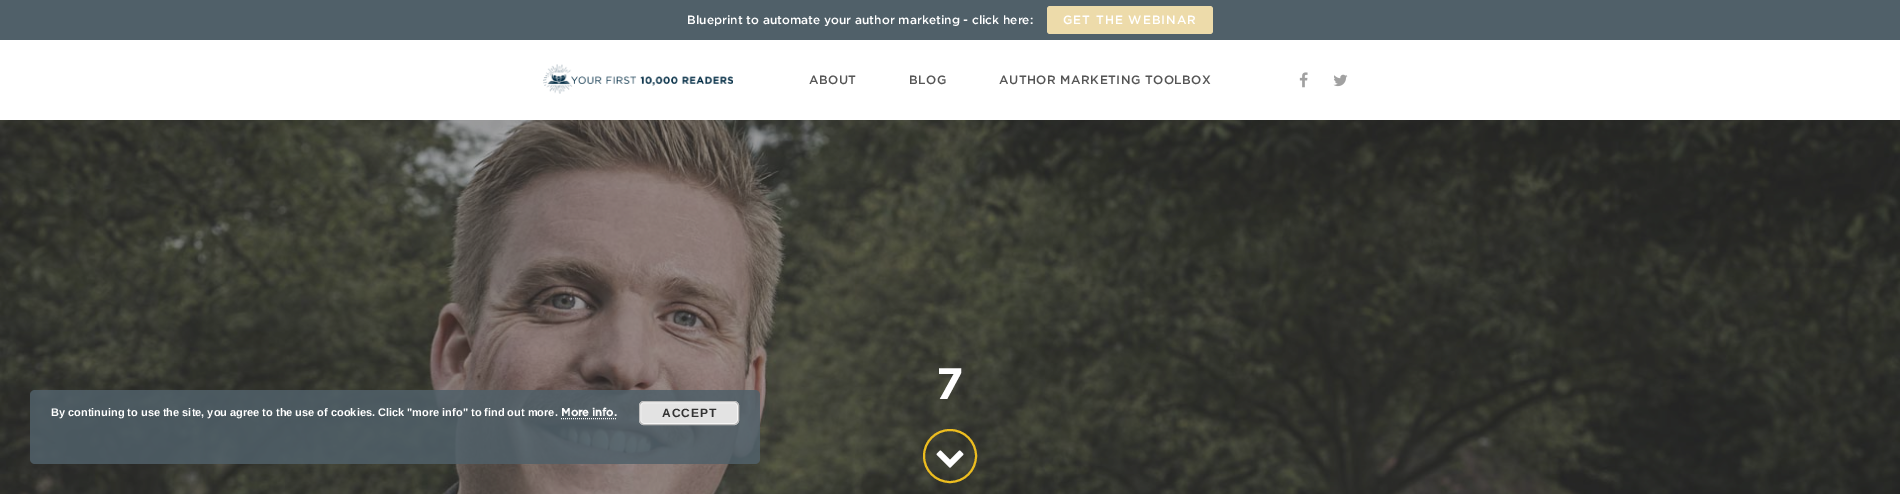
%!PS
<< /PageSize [1900 494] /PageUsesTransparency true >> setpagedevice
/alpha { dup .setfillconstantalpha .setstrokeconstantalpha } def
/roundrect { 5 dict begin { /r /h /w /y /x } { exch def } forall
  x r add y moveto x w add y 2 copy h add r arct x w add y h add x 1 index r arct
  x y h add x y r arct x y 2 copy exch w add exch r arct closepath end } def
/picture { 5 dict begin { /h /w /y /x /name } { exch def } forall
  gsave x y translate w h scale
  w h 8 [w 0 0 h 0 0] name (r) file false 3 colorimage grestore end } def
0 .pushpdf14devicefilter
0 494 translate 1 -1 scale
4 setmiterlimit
1 setgray
0 0 1900 494 rectfill
0.314 0.376 0.412 setrgbcolor
0 0 1900 40 rectfill
/Gotham-Medium [12 0 0 -12 0 0] selectfont
1 setgray
687 24 moveto (Blueprint to automate your author marketing - click here:) show
0.929 0.859 0.667 setrgbcolor
1047 6 166 28 3 roundrect fill
1 setgray
1063 24 moveto 1 0 (GET THE WEBINAR) ashow
(img1.rgb) 543 64 190 30 picture
0.333 setgray
809 84 moveto 0.5 0 (ABOUT) ashow
909 84 moveto 0.5 0 (BLOG) ashow
999 84 moveto 0.5 0 (AUTHOR MARKETING TOOLBOX) ashow
(img2.rgb) 1299 72 9 16 picture
(img3.rgb) 1333 74 15 13 picture
(img4.rgb) 0 120 1900 374 picture
/Gotham-Bold [44 0 0 -44 0 0] selectfont
1 setgray
936 399 moveto (7) show
0.929 0.741 0.122 setrgbcolor
2 setlinewidth
newpath 950 456 26 0 360 arc closepath stroke
(img5.rgb) 936 450 28 18 picture
0.85 alpha
0.314 0.376 0.412 setrgbcolor
30 390 730 74 5 roundrect fill
/LiberationSans-Bold [11 0 0 -11 0 0] selectfont
1 alpha
1 setgray
51 416 moveto (By continuing to use the site, you agree to the use of cookies. Click "more info" to find out more.) show
/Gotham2-Bold [11 0 0 -11 0 0] selectfont
561 416 moveto (More info.) show
1 setlinewidth
[1 1] 0 setdash
newpath 561 418.5 moveto 616 418.5 lineto stroke
0.89 setgray
639 401 100 24 5 roundrect fill
0.965 setgray
[] 0 setdash
640.5 402.5 97 21 3.5 roundrect stroke
0.733 setgray
639.5 401.5 99 23 4.5 roundrect stroke
/LiberationSans-Bold [12 0 0 -12 0 0] selectfont
0.2 setgray
662 417 moveto 1 0 (ACCEPT) ashow
.poppdf14devicefilter showpage
